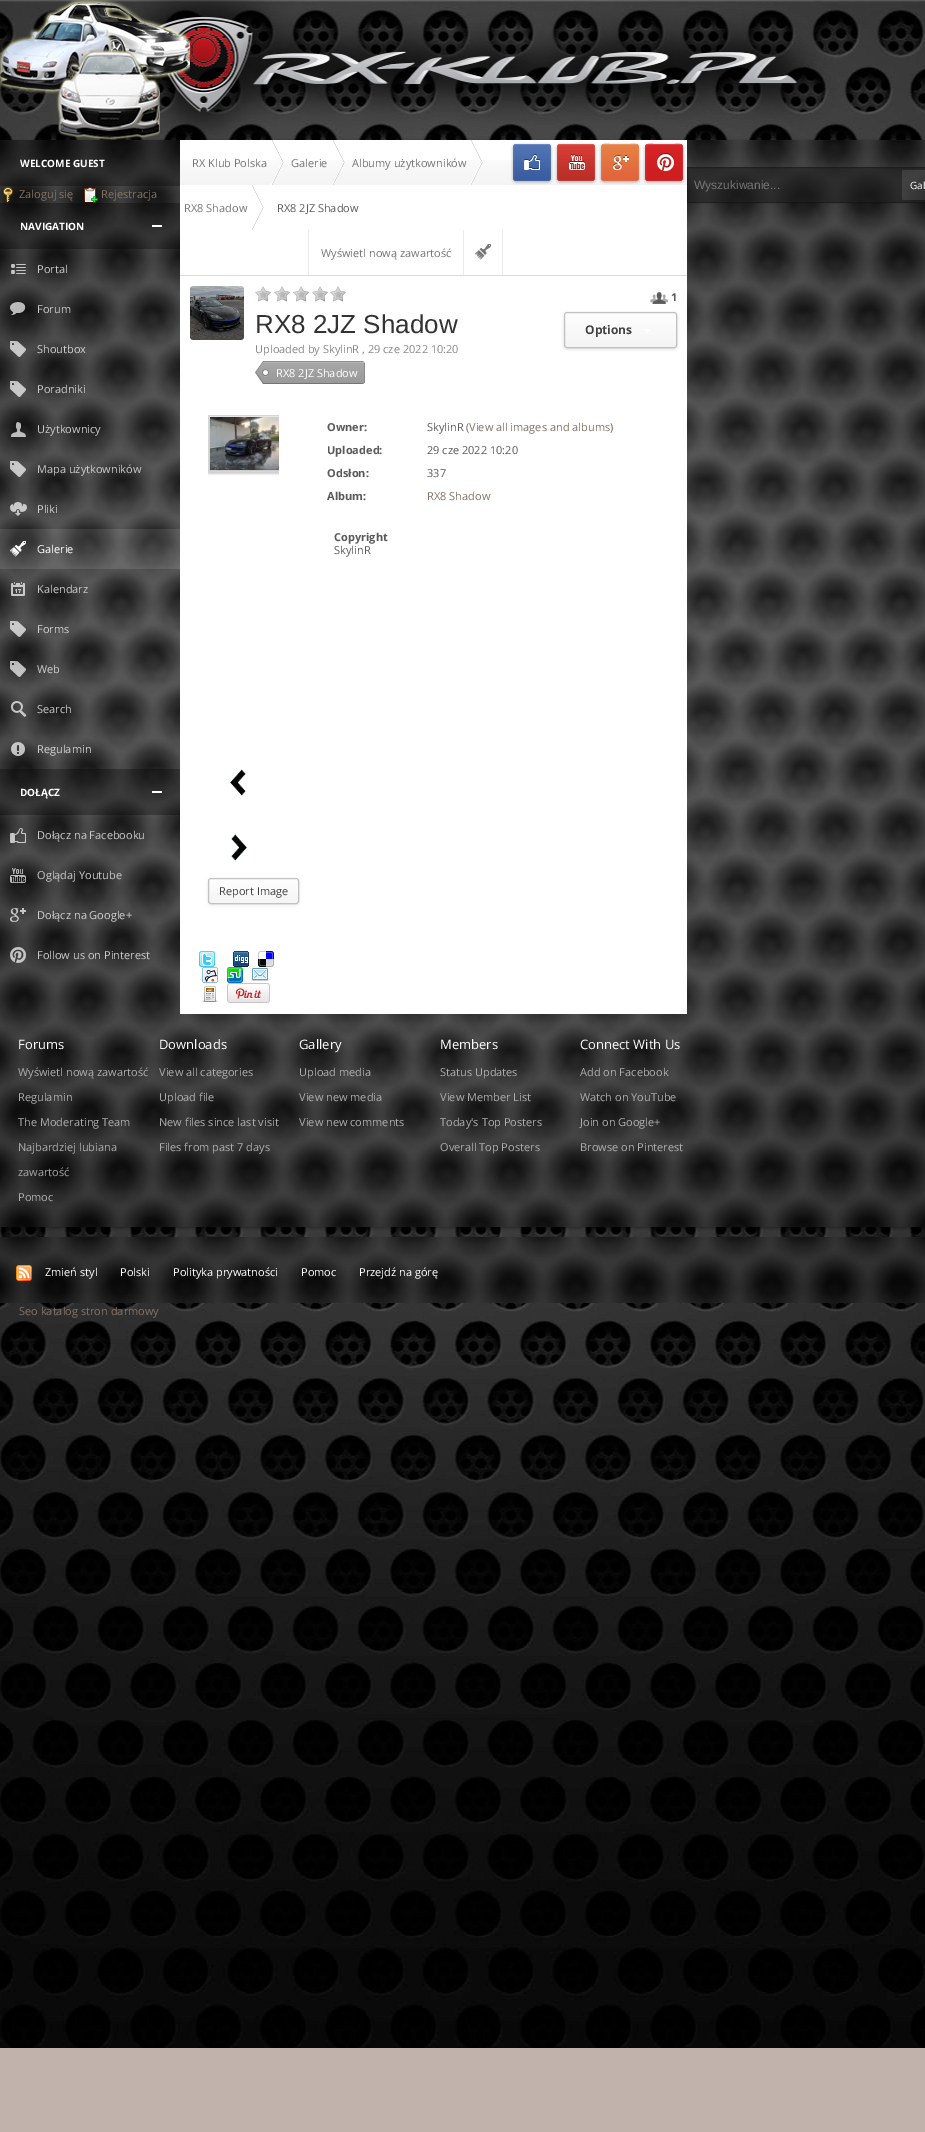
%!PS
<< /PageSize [925 2132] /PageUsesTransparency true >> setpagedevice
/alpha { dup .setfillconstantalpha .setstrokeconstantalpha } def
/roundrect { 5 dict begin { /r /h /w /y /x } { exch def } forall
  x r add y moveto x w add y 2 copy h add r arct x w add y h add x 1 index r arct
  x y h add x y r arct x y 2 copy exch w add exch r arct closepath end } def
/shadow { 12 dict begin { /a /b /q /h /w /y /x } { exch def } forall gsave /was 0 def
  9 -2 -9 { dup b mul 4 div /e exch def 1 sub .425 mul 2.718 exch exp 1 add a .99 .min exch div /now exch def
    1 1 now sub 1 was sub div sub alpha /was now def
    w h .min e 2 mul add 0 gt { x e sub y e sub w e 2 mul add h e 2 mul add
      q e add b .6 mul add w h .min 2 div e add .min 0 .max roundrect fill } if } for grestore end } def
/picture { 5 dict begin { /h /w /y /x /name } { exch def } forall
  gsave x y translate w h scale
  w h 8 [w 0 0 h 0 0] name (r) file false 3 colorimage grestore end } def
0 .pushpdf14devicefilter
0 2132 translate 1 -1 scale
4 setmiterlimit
0.757 0.698 0.671 setrgbcolor
0 0 925 2132 rectfill
(img1.rgb) 0 0 925 2048 picture
0 setgray
0 141 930 1087 0 1.5 0.35 shadow
(img2.rgb) 0 140 925 1087 picture
0.3 alpha
0 140 180 46 rectfill
/OpenSans-Bold [10 0 0 -10 0 0] selectfont
1 alpha
1 setgray
20 167 moveto (WELCOME GUEST) show
(img3.rgb) 3 187 10 16 picture
/OpenSans-Regular [11 0 0 -11 0 0] selectfont
0.514 0.447 0.392 setrgbcolor
19 198 moveto (Zaloguj się) show
(img4.rgb) 83 187 15 16 picture
101 198 moveto (Rejestracja) show
0.3 alpha
0 setgray
0 203 180 46 rectfill
/OpenSans-Bold [10 0 0 -10 0 0] selectfont
1 alpha
1 setgray
20 230 moveto (NAVIGATION) show
152 225 10 2 rectfill
(img5.rgb) 11 264 15 10 picture
/OpenSans-Regular [11 0 0 -11 0 0] selectfont
0.788 setgray
37 273 moveto (Portal) show
(img6.rgb) 10 302 16 13 picture
37 313 moveto (Forum) show
(img7.rgb) 10 341 16 16 picture
0.812 setgray
37 353 moveto (Shoutbox) show
(img8.rgb) 10 381 16 16 picture
0.788 setgray
37 393 moveto (Poradniki) show
(img9.rgb) 11 422 15 15 picture
37 433 moveto (Użytkownicy) show
(img10.rgb) 10 461 16 16 picture
37 473 moveto (Mapa użytkowników) show
(img11.rgb) 10 502 17 14 picture
0.812 setgray
37 513 moveto (Pliki) show
0.1 alpha
1 setgray
0 529 180 40 rectfill
1 alpha
(img12.rgb) 10 541 16 16 picture
37 553 moveto (Galerie) show
(img13.rgb) 11 582 14 14 picture
0.788 setgray
37 593 moveto (Kalendarz) show
(img14.rgb) 10 621 16 16 picture
0.812 setgray
37 633 moveto (Forms) show
(img15.rgb) 10 661 16 16 picture
37 673 moveto (Web) show
(img16.rgb) 10 701 17 16 picture
0.788 setgray
37 713 moveto (Search) show
(img17.rgb) 11 742 14 14 picture
0.812 setgray
37 753 moveto (Regulamin) show
0.3 alpha
0 setgray
0 769 180 46 rectfill
/OpenSans-Bold [10 0 0 -10 0 0] selectfont
1 alpha
1 setgray
20 796 moveto (DOŁĄCZ) show
152 791 10 2 rectfill
(img18.rgb) 10 828 16 15 picture
/OpenSans-Regular [11 0 0 -11 0 0] selectfont
0.788 setgray
37 839 moveto (Dołącz na Facebooku) show
(img19.rgb) 10 868 16 15 picture
37 879 moveto (Oglądaj Youtube) show
(img20.rgb) 10 908 16 14 picture
0.812 setgray
37 919 moveto (Dołącz na Google+) show
(img21.rgb) 10 947 16 16 picture
0.788 setgray
37 959 moveto (Follow us on Pinterest) show
1 setgray
180 140 507 874 rectfill
(img22.rgb) 180 160 507 25 picture
0.859 setgray
180 275 507 1 rectfill
(img23.rgb) 271 140 13 45 picture
0.459 setgray
192 167 moveto (RX Klub Polska) show
(img24.rgb) 332 140 13 45 picture
291 167 moveto (Galerie) show
(img25.rgb) 470 140 13 45 picture
352 167 moveto (Albumy użytkowników) show
(img26.rgb) 252 185 12 45 picture
184 212 moveto (RX8 Shadow) show
0.353 setgray
277 212 moveto (RX8 2JZ Shadow) show
0.918 setgray
308 230 1 45 rectfill
0.459 setgray
321 257 moveto (Wyświetl nową zawartość) show
0.918 setgray
502 230 1 45 rectfill
463 230 1 45 rectfill
(img27.rgb) 475 244 16 16 picture
0 setgray
513 145 38 37 3 1.5 0.3 shadow
(img28.rgb) 513 144 38 37 picture
0.1 alpha
1 setgray
newpath 516 145 moveto 548 145 lineto 550 145 551 146 551 148 curveto 551 143 547 144 542.5 144 curveto 521.5 144 lineto 517 144 513 143 513 148 curveto 513 146 514 145 516 145 curveto closepath fill
0.06 alpha
513.5 144.5 37 36 rectstroke
1 alpha
0 setgray
557 145 38 37 3 1.5 0.3 shadow
(img29.rgb) 557 144 38 37 picture
0.1 alpha
1 setgray
newpath 560 145 moveto 592 145 lineto 594 145 595 146 595 148 curveto 595 143 591 144 586.5 144 curveto 565.5 144 lineto 561 144 557 143 557 148 curveto 557 146 558 145 560 145 curveto closepath fill
0.06 alpha
557.5 144.5 37 36 rectstroke
1 alpha
0 setgray
601 145 38 37 3 1.5 0.3 shadow
(img30.rgb) 601 144 38 37 picture
0.91 0.553 0.341 setrgbcolor
newpath 604 145 moveto 636 145 lineto 638 145 639 146 639 148 curveto 639 143 635 144 630.5 144 curveto 609.5 144 lineto 605 144 601 143 601 148 curveto 601 146 602 145 604 145 curveto closepath fill
0.06 alpha
1 setgray
601.5 144.5 37 36 rectstroke
1 alpha
0 setgray
645 145 38 37 3 1.5 0.3 shadow
(img31.rgb) 645 144 38 37 picture
0.859 0.224 0.231 setrgbcolor
newpath 648 145 moveto 680 145 lineto 682 145 683 146 683 148 curveto 683 143 679 144 674.5 144 curveto 653.5 144 lineto 649 144 645 143 645 148 curveto 645 146 646 145 648 145 curveto closepath fill
0.06 alpha
1 setgray
645.5 144.5 37 36 rectstroke
1 alpha
(img32.rgb) 190 286 54 54 picture
(img33.rgb) 255 286 16 16 picture
(img33.rgb) 274 286 16 16 picture
(img33.rgb) 293 286 16 16 picture
(img33.rgb) 312 286 16 16 picture
(img33.rgb) 330 286 16 16 picture
/LiberationSans-Regular [26 0 0 -26 0 0] selectfont
0.196 setgray
255 333 moveto (RX8 2JZ Shadow) show
/OpenSans-Regular [11 0 0 -11 0 0] selectfont
0.533 setgray
255 353 moveto (Uploaded by SkylinR , 29 cze 2022 10:20) show
(img34.rgb) 255 361 110 23 picture
0.545 setgray
364 363 1 20 rectfill
1 setgray
276 377 moveto (RX8 2JZ Shadow) show
(img35.rgb) 650 292 18 12 picture
/OpenSans-Bold [11 0 0 -11 0 0] selectfont
0.353 setgray
671 301 moveto (1) show
0 setgray
564 313 113 36 3 1.5 0.15 shadow
0.957 setgray
564 312 113 36 3 roundrect fill
gsave
564 312 113 36 3 roundrect clip newpath
gsave newpath 567 312 moveto 674 312 lineto 675.5 312 677 313.5 677 315 curveto 677 346 lineto 564 346 lineto 564 315 lineto 564 313.5 565.5 312 567 312 curveto closepath clip newpath
<< /ShadingType 2 /ColorSpace /DeviceRGB /Coords [621 312 621 346] /Extend [true true] /Function << /FunctionType 2 /Domain [0 1] /C0 [1 1 1] /C1 [0.957 0.957 0.957] /N 1 >> >> shfill grestore
grestore
0.753 0.761 0.765 setrgbcolor
564.5 312.5 112 35 2.5 roundrect stroke
/OpenSans-Bold [12 0 0 -12 0 0] selectfont
0.255 setgray
585 334 moveto (Options) show
(img36.rgb) 644 329 7 4 picture
/OpenSans-Bold [11 0 0 -11 0 0] selectfont
0.353 setgray
327 431 moveto (Owner:) show
/OpenSans-Regular [11 0 0 -11 0 0] selectfont
427 431 moveto (SkylinR \() show
0.514 0.447 0.392 setrgbcolor
469 431 moveto (View all images and albums) show
0.353 setgray
610 431 moveto (\)) show
/OpenSans-Bold [11 0 0 -11 0 0] selectfont
327 454 moveto (Uploaded:) show
/OpenSans-Regular [11 0 0 -11 0 0] selectfont
427 454 moveto (29 cze 2022 10:20) show
/OpenSans-Bold [11 0 0 -11 0 0] selectfont
327 477 moveto (Odsłon:) show
/OpenSans-Regular [11 0 0 -11 0 0] selectfont
427 477 moveto (337) show
/OpenSans-Bold [11 0 0 -11 0 0] selectfont
327 500 moveto (Album:) show
/OpenSans-Regular [11 0 0 -11 0 0] selectfont
0.514 0.447 0.392 setrgbcolor
427 500 moveto (RX8 Shadow) show
/OpenSans-Bold [11 0 0 -11 0 0] selectfont
0.353 setgray
334 541 moveto (Copyright) show
/OpenSans-Regular [11 0 0 -11 0 0] selectfont
334 554 moveto (SkylinR) show
gsave
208 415 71 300 rectclip
0 setgray
208 417 75 57 0 1 0.2 shadow
grestore
gsave
208 415 71 300 rectclip
0.835 setgray
208.5 415.5 74 56 rectstroke
grestore
(img37.rgb) 210 417 69 53 picture
(img38.rgb) 230 769 16 27 picture
(img39.rgb) 231 834 16 27 picture
0 setgray
208 879 91 26 3 1.5 0.1 shadow
0.961 setgray
208 878 91 26 3 roundrect fill
gsave
208 878 91 26 3 roundrect clip newpath
gsave newpath 211 878 moveto 296 878 lineto 297.5 878 299 879.5 299 881 curveto 299 902 lineto 208 902 lineto 208 881 lineto 208 879.5 209.5 878 211 878 curveto closepath clip newpath
<< /ShadingType 2 /ColorSpace /DeviceRGB /Coords [254 878 254 902] /Extend [true true] /Function << /FunctionType 2 /Domain [0 1] /C0 [1 1 1] /C1 [0.961 0.961 0.961] /N 1 >> >> shfill grestore
grestore
0.753 0.761 0.765 setrgbcolor
208.5 878.5 90 25 2.5 roundrect stroke
0.255 setgray
219 895 moveto (Report Image) show
(img40.rgb) 199 951 16 16 picture
(img41.rgb) 233 951 16 16 picture
(img42.rgb) 258 951 16 16 picture
(img43.rgb) 202 967 16 16 picture
(img44.rgb) 227 967 16 16 picture
(img45.rgb) 252 968 16 13 picture
(img46.rgb) 202 986 16 16 picture
(img47.rgb) 227 983 43 20 picture
/OpenSans-Regular [13 0 0 -13 0 0] selectfont
1 setgray
18 1049 moveto (Forums) show
/OpenSans-Regular [11 0 0 -11 0 0] selectfont
0.678 setgray
18 1076 moveto (Wyświetl nową zawartość) show
18 1101 moveto (Regulamin) show
18 1126 moveto (The Moderating Team) show
18 1151 moveto (Najbardziej lubiana) show
0.643 setgray
18 1176 moveto (zawartość) show
0.678 setgray
18 1201 moveto (Pomoc) show
/OpenSans-Regular [13 0 0 -13 0 0] selectfont
1 setgray
159 1049 moveto (Downloads) show
/OpenSans-Regular [11 0 0 -11 0 0] selectfont
0.678 setgray
159 1076 moveto (View all categories) show
159 1101 moveto (Upload file) show
159 1126 moveto (New files since last visit) show
159 1151 moveto (Files from past 7 days) show
/OpenSans-Regular [13 0 0 -13 0 0] selectfont
1 setgray
299 1049 moveto (Gallery) show
/OpenSans-Regular [11 0 0 -11 0 0] selectfont
0.678 setgray
299 1076 moveto (Upload media) show
299 1101 moveto (View new media) show
299 1126 moveto (View new comments) show
/OpenSans-Regular [13 0 0 -13 0 0] selectfont
1 setgray
440 1049 moveto (Members) show
/OpenSans-Regular [11 0 0 -11 0 0] selectfont
0.678 setgray
440 1076 moveto (Status Updates) show
440 1101 moveto (View Member List) show
440 1126 moveto (Today's Top Posters) show
440 1151 moveto (Overall Top Posters) show
/OpenSans-Regular [13 0 0 -13 0 0] selectfont
1 setgray
580 1049 moveto (Connect With Us) show
/OpenSans-Regular [11 0 0 -11 0 0] selectfont
0.678 setgray
580 1076 moveto (Add on Facebook) show
580 1101 moveto (Watch on YouTube) show
580 1126 moveto (Join on Google+) show
580 1151 moveto (Browse on Pinterest) show
(img48.rgb) 0 0 190 140 picture
0.6 alpha
0.118 setgray
687 167 238 36 rectfill
0.25 alpha
0 setgray
687.5 167.5 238 35 rectstroke
/LiberationSans-Regular [12 0 0 -12 0 0] selectfont
1 alpha
0.459 setgray
694 189 moveto (Wyszukiwanie...) show
0.1 alpha
1 setgray
902 170 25 30 2 roundrect fill
/OpenSans-Regular [10 0 0 -10 0 0] selectfont
1 alpha
910 189 moveto (Gal) show
(img49.rgb) 0 1237 925 66 picture
(img50.rgb) 16 1265 16 16 picture
/OpenSans-Regular [11 0 0 -11 0 0] selectfont
45 1276 moveto (Zmień styl) show
120 1276 moveto (Polski) show
173 1276 moveto (Polityka prywatności) show
301 1276 moveto (Pomoc) show
359 1276 moveto (Przejdź na górę) show
0.514 0.447 0.392 setrgbcolor
19 1315 moveto (Seo katalog stron darmowy) show
.poppdf14devicefilter showpage
